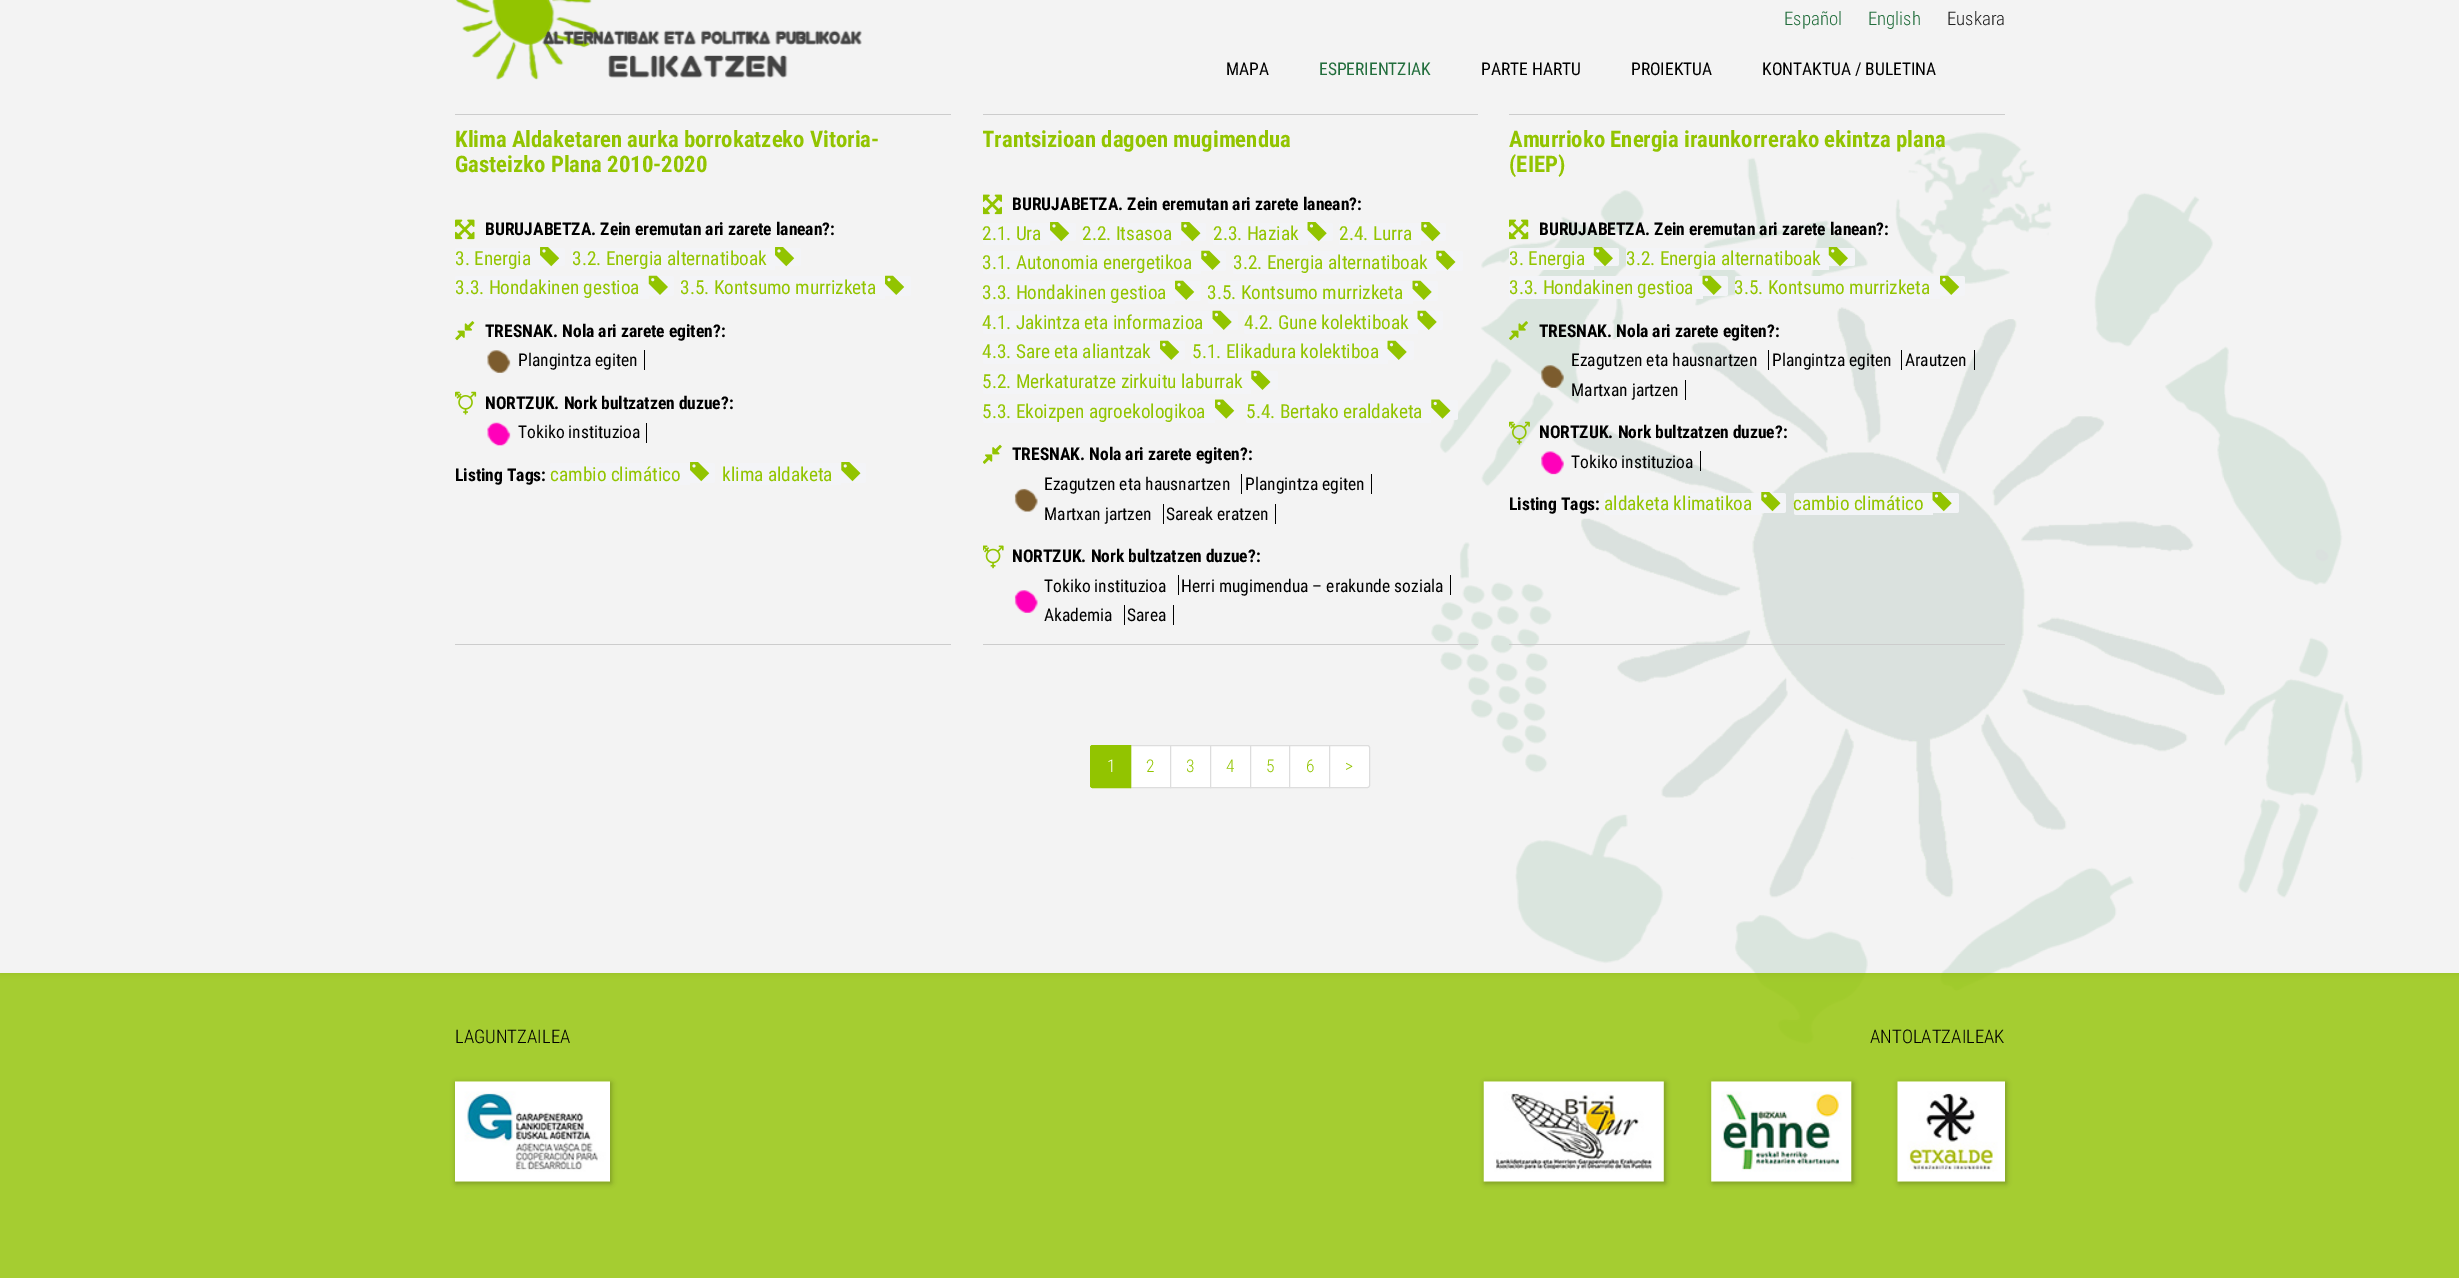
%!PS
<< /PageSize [2459 1278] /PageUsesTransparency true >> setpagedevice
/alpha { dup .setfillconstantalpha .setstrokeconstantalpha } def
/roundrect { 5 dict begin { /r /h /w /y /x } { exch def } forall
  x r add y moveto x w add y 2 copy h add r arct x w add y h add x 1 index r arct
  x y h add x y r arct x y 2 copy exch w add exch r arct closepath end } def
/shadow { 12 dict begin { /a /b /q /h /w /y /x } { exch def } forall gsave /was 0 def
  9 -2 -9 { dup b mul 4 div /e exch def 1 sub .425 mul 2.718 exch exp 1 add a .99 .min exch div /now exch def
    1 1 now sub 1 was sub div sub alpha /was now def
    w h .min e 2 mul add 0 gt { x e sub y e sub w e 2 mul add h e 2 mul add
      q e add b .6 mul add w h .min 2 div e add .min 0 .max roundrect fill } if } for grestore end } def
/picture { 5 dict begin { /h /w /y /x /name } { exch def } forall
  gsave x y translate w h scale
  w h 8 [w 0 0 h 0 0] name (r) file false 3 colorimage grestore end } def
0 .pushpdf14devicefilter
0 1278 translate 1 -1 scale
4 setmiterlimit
0.953 setgray
0 0 2459 1278 rectfill
(img1.rgb) 1431 132 932 912 picture
gsave
newpath 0 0 moveto 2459 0 lineto 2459 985 lineto 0 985 lineto closepath 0 -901 moveto 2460 -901 lineto 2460 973 lineto 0 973 lineto closepath eoclip newpath
0 setgray
0 -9 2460 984 0 3 0.15 shadow
grestore
gsave
newpath 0 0 moveto 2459 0 lineto 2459 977 lineto 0 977 lineto closepath 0 -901 moveto 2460 -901 lineto 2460 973 lineto 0 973 lineto closepath eoclip newpath
0 setgray
0 -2 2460 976 0 0.5 0.05 shadow
grestore
/RobotoCondensed-Light [18.75 0 0 -18.75 0 0] selectfont
0.137 0.431 0.239 setrgbcolor
1784 25 moveto (Español) show
1868 25 moveto (English) show
0.133 setgray
1947 25 moveto (Euskara) show
(img2.rgb) 456 0 406 80 picture
/RobotoCondensed-Regular [17.5 0 0 -17.5 0 0] selectfont
0 setgray
1226 75 moveto (MAPA) show
0.137 0.431 0.239 setrgbcolor
1319 75 moveto (ESPERIENTZIAK) show
0 setgray
1481 75 moveto (PARTE HARTU) show
1631 75 moveto (PROIEKTUA) show
1762 75 moveto (KONTAKTUA / BULETINA) show
0.8 setgray
455 114 496 1 rectfill
455 644 496 1 rectfill
/RobotoCondensed-Bold [22.75 0 0 -22.75 0 0] selectfont
0.573 0.769 0 setrgbcolor
455 147 moveto (Klima Aldaketaren aurka borrokatzeko Vitoria-) show
455 172 moveto (Gasteizko Plana 2010-2020) show
(img3.rgb) 455 219 20 21 picture
/RobotoCondensed-Bold [17.5 0 0 -17.5 0 0] selectfont
0 setgray
485 235 moveto (BURUJABETZA. Zein eremutan ari zarete lanean?:) show
0.953 0.957 0.969 setrgbcolor
newpath 457.5 248 moveto 540 248 lineto 540 270 lineto 457.5 270 lineto 456 270 455 269 455 267.5 curveto 455 250.5 lineto 455 249 456 248 457.5 248 curveto closepath fill
newpath 540 248 moveto 562.5 248 lineto 564 248 565 249 565 250.5 curveto 565 263.5 lineto 565 265 564 266 562.5 266 curveto 540 266 lineto closepath fill
/RobotoCondensed-Regular [19.25 0 0 -19.25 0 0] selectfont
0.573 0.769 0 setrgbcolor
455 265 moveto (3. Energia) show
(img4.rgb) 540 247 20 20 picture
0.953 0.957 0.969 setrgbcolor
newpath 573.5 248 moveto 775 248 lineto 775 270 lineto 573.5 270 lineto 572 270 571 269 571 267.5 curveto 571 250.5 lineto 571 249 572 248 573.5 248 curveto closepath fill
newpath 775 248 moveto 798.5 248 lineto 800 248 801 249 801 250.5 curveto 801 263.5 lineto 801 265 800 266 798.5 266 curveto 775 266 lineto closepath fill
0.573 0.769 0 setrgbcolor
572 265 moveto (3.2. Energia alternatiboak) show
(img4.rgb) 775 247 20 20 picture
0.953 0.957 0.969 setrgbcolor
newpath 457.5 276 moveto 649 276 lineto 649 299 lineto 457.5 299 lineto 456 299 455 298 455 296.5 curveto 455 278.5 lineto 455 277 456 276 457.5 276 curveto closepath fill
newpath 649 276 moveto 671.5 276 lineto 673 276 674 277 674 278.5 curveto 674 293.5 lineto 674 295 673 296 671.5 296 curveto 649 296 lineto closepath fill
0.573 0.769 0 setrgbcolor
455 294 moveto (3.3. Hondakinen gestioa) show
(img5.rgb) 648 275 20 20 picture
0.953 0.957 0.969 setrgbcolor
newpath 682.5 276 moveto 885 276 lineto 885 299 lineto 682.5 299 lineto 681 299 680 298 680 296.5 curveto 680 278.5 lineto 680 277 681 276 682.5 276 curveto closepath fill
newpath 885 276 moveto 908.5 276 lineto 910 276 911 277 911 278.5 curveto 911 293.5 lineto 911 295 910 296 908.5 296 curveto 885 296 lineto closepath fill
0.573 0.769 0 setrgbcolor
680 294 moveto (3.5. Kontsumo murrizketa) show
(img6.rgb) 885 275 20 20 picture
(img7.rgb) 455 321 20 20 picture
/RobotoCondensed-Bold [17.5 0 0 -17.5 0 0] selectfont
0 setgray
485 337 moveto (TRESNAK. Nola ari zarete egiten?:) show
(img8.rgb) 487 350 24 23 picture
/RobotoCondensed-Regular [17.5 0 0 -17.5 0 0] selectfont
518 366 moveto (Plangintza egiten) show
644 350 1 20 rectfill
(img9.rgb) 455 391 22 24 picture
/RobotoCondensed-Bold [17.5 0 0 -17.5 0 0] selectfont
485 409 moveto (NORTZUK. Nork bultzatzen duzue?:) show
(img10.rgb) 487 422 24 24 picture
/RobotoCondensed-Regular [17.5 0 0 -17.5 0 0] selectfont
518 438 moveto (Tokiko instituzioa) show
646 423 1 20 rectfill
/RobotoCondensed-Bold [17.5 0 0 -17.5 0 0] selectfont
455 481 moveto (Listing Tags:) show
0.953 0.957 0.969 setrgbcolor
newpath 552.5 463 moveto 690 463 lineto 690 485 lineto 552.5 485 lineto 551 485 550 484 550 482.5 curveto 550 465.5 lineto 550 464 551 463 552.5 463 curveto closepath fill
newpath 690 463 moveto 712.5 463 lineto 714 463 715 464 715 465.5 curveto 715 480.5 lineto 715 482 714 483 712.5 483 curveto 690 483 lineto closepath fill
/RobotoCondensed-Regular [19.25 0 0 -19.25 0 0] selectfont
0.573 0.769 0 setrgbcolor
550 481 moveto (cambio climático) show
(img11.rgb) 690 462 20 20 picture
0.953 0.957 0.969 setrgbcolor
newpath 723.5 463 moveto 841 463 lineto 841 485 lineto 723.5 485 lineto 722 485 721 484 721 482.5 curveto 721 465.5 lineto 721 464 722 463 723.5 463 curveto closepath fill
newpath 841 463 moveto 863.5 463 lineto 865 463 866 464 866 465.5 curveto 866 480.5 lineto 866 482 865 483 863.5 483 curveto 841 483 lineto closepath fill
0.573 0.769 0 setrgbcolor
722 481 moveto (klima aldaketa) show
(img12.rgb) 841 462 20 20 picture
0.8 setgray
983 114 495 1 rectfill
983 644 495 1 rectfill
gsave
983 115 495 63 rectclip
/RobotoCondensed-Bold [22.75 0 0 -22.75 0 0] selectfont
0.573 0.769 0 setrgbcolor
982 147 moveto (Trantsizioan dagoen mugimendua) show
grestore
(img13.rgb) 983 194 19 21 picture
/RobotoCondensed-Bold [17.5 0 0 -17.5 0 0] selectfont
0 setgray
1012 210 moveto (BURUJABETZA. Zein eremutan ari zarete lanean?:) show
0.953 0.957 0.969 setrgbcolor
newpath 985.5 223 moveto 1050 223 lineto 1050 245 lineto 985.5 245 lineto 984 245 983 244 983 242.5 curveto 983 225.5 lineto 983 224 984 223 985.5 223 curveto closepath fill
newpath 1050 223 moveto 1073.5 223 lineto 1075 223 1076 224 1076 225.5 curveto 1076 238.5 lineto 1076 240 1075 241 1073.5 241 curveto 1050 241 lineto closepath fill
/RobotoCondensed-Regular [19.25 0 0 -19.25 0 0] selectfont
0.573 0.769 0 setrgbcolor
982 240 moveto (2.1. Ura) show
(img4.rgb) 1050 222 20 20 picture
0.953 0.957 0.969 setrgbcolor
newpath 1085.5 223 moveto 1181 223 lineto 1181 245 lineto 1085.5 245 lineto 1084 245 1083 244 1083 242.5 curveto 1083 225.5 lineto 1083 224 1084 223 1085.5 223 curveto closepath fill
newpath 1181 223 moveto 1203.5 223 lineto 1205 223 1206 224 1206 225.5 curveto 1206 238.5 lineto 1206 240 1205 241 1203.5 241 curveto 1181 241 lineto closepath fill
0.573 0.769 0 setrgbcolor
1082 240 moveto (2.2. Itsasoa) show
(img14.rgb) 1181 222 20 20 picture
0.953 0.957 0.969 setrgbcolor
newpath 1215.5 223 moveto 1308 223 lineto 1308 245 lineto 1215.5 245 lineto 1214 245 1213 244 1213 242.5 curveto 1213 225.5 lineto 1213 224 1214 223 1215.5 223 curveto closepath fill
newpath 1308 223 moveto 1330.5 223 lineto 1332 223 1333 224 1333 225.5 curveto 1333 238.5 lineto 1333 240 1332 241 1330.5 241 curveto 1308 241 lineto closepath fill
0.573 0.769 0 setrgbcolor
1213 240 moveto (2.3. Haziak) show
(img15.rgb) 1307 222 20 20 picture
0.953 0.957 0.969 setrgbcolor
newpath 1341.5 223 moveto 1421 223 lineto 1421 245 lineto 1341.5 245 lineto 1340 245 1339 244 1339 242.5 curveto 1339 225.5 lineto 1339 224 1340 223 1341.5 223 curveto closepath fill
newpath 1421 223 moveto 1443.5 223 lineto 1445 223 1446 224 1446 225.5 curveto 1446 238.5 lineto 1446 240 1445 241 1443.5 241 curveto 1421 241 lineto closepath fill
0.573 0.769 0 setrgbcolor
1339 240 moveto (2.4. Lurra) show
(img14.rgb) 1421 222 20 20 picture
0.953 0.957 0.969 setrgbcolor
newpath 985.5 251 moveto 1201 251 lineto 1201 274 lineto 985.5 274 lineto 984 274 983 273 983 271.5 curveto 983 253.5 lineto 983 252 984 251 985.5 251 curveto closepath fill
newpath 1201 251 moveto 1223.5 251 lineto 1225 251 1226 252 1226 253.5 curveto 1226 268.5 lineto 1226 270 1225 271 1223.5 271 curveto 1201 271 lineto closepath fill
0.573 0.769 0 setrgbcolor
982 269 moveto (3.1. Autonomia energetikoa) show
(img16.rgb) 1201 250 20 20 picture
0.953 0.957 0.969 setrgbcolor
newpath 1235.5 251 moveto 1436 251 lineto 1436 274 lineto 1235.5 274 lineto 1234 274 1233 273 1233 271.5 curveto 1233 253.5 lineto 1233 252 1234 251 1235.5 251 curveto closepath fill
newpath 1436 251 moveto 1460.5 251 lineto 1462 251 1463 252 1463 253.5 curveto 1463 268.5 lineto 1463 270 1462 271 1460.5 271 curveto 1436 271 lineto closepath fill
0.573 0.769 0 setrgbcolor
1233 269 moveto (3.2. Energia alternatiboak) show
(img16.rgb) 1436 250 20 20 picture
0.953 0.957 0.969 setrgbcolor
newpath 985.5 281 moveto 1175 281 lineto 1175 304 lineto 985.5 304 lineto 984 304 983 303 983 301.5 curveto 983 283.5 lineto 983 282 984 281 985.5 281 curveto closepath fill
newpath 1175 281 moveto 1198.5 281 lineto 1200 281 1201 282 1201 283.5 curveto 1201 298.5 lineto 1201 300 1200 301 1198.5 301 curveto 1175 301 lineto closepath fill
0.573 0.769 0 setrgbcolor
982 299 moveto (3.3. Hondakinen gestioa) show
(img6.rgb) 1175 280 20 20 picture
0.953 0.957 0.969 setrgbcolor
newpath 1210.5 281 moveto 1413 281 lineto 1413 304 lineto 1210.5 304 lineto 1209 304 1208 303 1208 301.5 curveto 1208 283.5 lineto 1208 282 1209 281 1210.5 281 curveto closepath fill
newpath 1413 281 moveto 1435.5 281 lineto 1437 281 1438 282 1438 283.5 curveto 1438 298.5 lineto 1438 300 1437 301 1435.5 301 curveto 1413 301 lineto closepath fill
0.573 0.769 0 setrgbcolor
1207 299 moveto (3.5. Kontsumo murrizketa) show
(img17.rgb) 1412 280 20 20 picture
0.953 0.957 0.969 setrgbcolor
newpath 985.5 311 moveto 1213 311 lineto 1213 334 lineto 985.5 334 lineto 984 334 983 333 983 331.5 curveto 983 313.5 lineto 983 312 984 311 985.5 311 curveto closepath fill
newpath 1213 311 moveto 1235.5 311 lineto 1237 311 1238 312 1238 313.5 curveto 1238 327.5 lineto 1238 329 1237 330 1235.5 330 curveto 1213 330 lineto closepath fill
0.573 0.769 0 setrgbcolor
982 329 moveto (4.1. Jakintza eta informazioa) show
(img17.rgb) 1212 310 20 20 picture
0.953 0.957 0.969 setrgbcolor
newpath 1246.5 311 moveto 1418 311 lineto 1418 334 lineto 1246.5 334 lineto 1245 334 1244 333 1244 331.5 curveto 1244 313.5 lineto 1244 312 1245 311 1246.5 311 curveto closepath fill
newpath 1418 311 moveto 1440.5 311 lineto 1442 311 1443 312 1443 313.5 curveto 1443 327.5 lineto 1443 329 1442 330 1440.5 330 curveto 1418 330 lineto closepath fill
0.573 0.769 0 setrgbcolor
1244 329 moveto (4.2. Gune kolektiboak) show
(img17.rgb) 1417 310 20 20 picture
0.953 0.957 0.969 setrgbcolor
newpath 985.5 341 moveto 1160 341 lineto 1160 364 lineto 985.5 364 lineto 984 364 983 363 983 361.5 curveto 983 343.5 lineto 983 342 984 341 985.5 341 curveto closepath fill
newpath 1160 341 moveto 1182.5 341 lineto 1184 341 1185 342 1185 343.5 curveto 1185 357.5 lineto 1185 359 1184 360 1182.5 360 curveto 1160 360 lineto closepath fill
0.573 0.769 0 setrgbcolor
982 358 moveto (4.3. Sare eta aliantzak) show
(img6.rgb) 1160 340 20 20 picture
0.953 0.957 0.969 setrgbcolor
newpath 1193.5 341 moveto 1388 341 lineto 1388 364 lineto 1193.5 364 lineto 1192 364 1191 363 1191 361.5 curveto 1191 343.5 lineto 1191 342 1192 341 1193.5 341 curveto closepath fill
newpath 1388 341 moveto 1411.5 341 lineto 1413 341 1414 342 1414 343.5 curveto 1414 357.5 lineto 1414 359 1413 360 1411.5 360 curveto 1388 360 lineto closepath fill
0.573 0.769 0 setrgbcolor
1192 358 moveto (5.1. Elikadura kolektiboa) show
(img17.rgb) 1387 340 20 20 picture
0.953 0.957 0.969 setrgbcolor
newpath 985.5 371 moveto 1251 371 lineto 1251 394 lineto 985.5 394 lineto 984 394 983 393 983 391.5 curveto 983 373.5 lineto 983 372 984 371 985.5 371 curveto closepath fill
newpath 1251 371 moveto 1275.5 371 lineto 1277 371 1278 372 1278 373.5 curveto 1278 387.5 lineto 1278 389 1277 390 1275.5 390 curveto 1251 390 lineto closepath fill
0.573 0.769 0 setrgbcolor
982 388 moveto (5.2. Merkaturatze zirkuitu laburrak) show
(img16.rgb) 1251 370 20 20 picture
0.953 0.957 0.969 setrgbcolor
newpath 985.5 400 moveto 1215 400 lineto 1215 423 lineto 985.5 423 lineto 984 423 983 422 983 420.5 curveto 983 402.5 lineto 983 401 984 400 985.5 400 curveto closepath fill
newpath 1215 400 moveto 1237.5 400 lineto 1239 400 1240 401 1240 402.5 curveto 1240 417.5 lineto 1240 419 1239 420 1237.5 420 curveto 1215 420 lineto closepath fill
0.573 0.769 0 setrgbcolor
982 418 moveto (5.3. Ekoizpen agroekologikoa) show
(img18.rgb) 1215 399 20 20 picture
0.953 0.957 0.969 setrgbcolor
newpath 1248.5 400 moveto 1431 400 lineto 1431 423 lineto 1248.5 423 lineto 1247 423 1246 422 1246 420.5 curveto 1246 402.5 lineto 1246 401 1247 400 1248.5 400 curveto closepath fill
newpath 1431 400 moveto 1455.5 400 lineto 1457 400 1458 401 1458 402.5 curveto 1458 417.5 lineto 1458 419 1457 420 1455.5 420 curveto 1431 420 lineto closepath fill
0.573 0.769 0 setrgbcolor
1246 418 moveto (5.4. Bertako eraldaketa) show
(img19.rgb) 1431 399 20 20 picture
(img20.rgb) 983 444 19 20 picture
/RobotoCondensed-Bold [17.5 0 0 -17.5 0 0] selectfont
0 setgray
1012 460 moveto (TRESNAK. Nola ari zarete egiten?:) show
(img21.rgb) 1014 488 24 24 picture
/RobotoCondensed-Regular [17.5 0 0 -17.5 0 0] selectfont
1044 490 moveto (Ezagutzen eta hausnartzen) show
1241 474 1 20 rectfill
1245 490 moveto (Plangintza egiten) show
1371 474 1 20 rectfill
1044 520 moveto (Martxan jartzen) show
1163 504 1 20 rectfill
1166 520 moveto (Sareak eratzen) show
1275 504 1 20 rectfill
(img22.rgb) 983 545 21 24 picture
/RobotoCondensed-Bold [17.5 0 0 -17.5 0 0] selectfont
1012 562 moveto (NORTZUK. Nork bultzatzen duzue?:) show
(img23.rgb) 1014 590 24 23 picture
/RobotoCondensed-Regular [17.5 0 0 -17.5 0 0] selectfont
1044 592 moveto (Tokiko instituzioa) show
1178 575 1 20 rectfill
1181 592 moveto (Herri mugimendua – erakunde soziala) show
1450 575 1 20 rectfill
1044 621 moveto (Akademia) show
1124 605 1 20 rectfill
1127 621 moveto (Sarea) show
1173 605 1 20 rectfill
0.8 setgray
1509 114 496 1 rectfill
1509 644 496 1 rectfill
/RobotoCondensed-Bold [22.75 0 0 -22.75 0 0] selectfont
0.573 0.769 0 setrgbcolor
1509 147 moveto (Amurrioko Energia iraunkorrerako ekintza plana) show
1509 172 moveto (\(EIEP\)) show
(img24.rgb) 1509 219 20 21 picture
/RobotoCondensed-Bold [17.5 0 0 -17.5 0 0] selectfont
0 setgray
1539 235 moveto (BURUJABETZA. Zein eremutan ari zarete lanean?:) show
0.953 0.957 0.969 setrgbcolor
newpath 1511.5 248 moveto 1594 248 lineto 1594 270 lineto 1511.5 270 lineto 1510 270 1509 269 1509 267.5 curveto 1509 250.5 lineto 1509 249 1510 248 1511.5 248 curveto closepath fill
newpath 1594 248 moveto 1616.5 248 lineto 1618 248 1619 249 1619 250.5 curveto 1619 263.5 lineto 1619 265 1618 266 1616.5 266 curveto 1594 266 lineto closepath fill
/RobotoCondensed-Regular [19.25 0 0 -19.25 0 0] selectfont
0.573 0.769 0 setrgbcolor
1509 265 moveto (3. Energia) show
(img25.rgb) 1593 247 20 20 picture
0.953 0.957 0.969 setrgbcolor
newpath 1628.5 248 moveto 1829 248 lineto 1829 270 lineto 1628.5 270 lineto 1627 270 1626 269 1626 267.5 curveto 1626 250.5 lineto 1626 249 1627 248 1628.5 248 curveto closepath fill
newpath 1829 248 moveto 1852.5 248 lineto 1854 248 1855 249 1855 250.5 curveto 1855 263.5 lineto 1855 265 1854 266 1852.5 266 curveto 1829 266 lineto closepath fill
0.573 0.769 0 setrgbcolor
1626 265 moveto (3.2. Energia alternatiboak) show
(img25.rgb) 1828 247 20 20 picture
0.953 0.957 0.969 setrgbcolor
newpath 1511.5 276 moveto 1703 276 lineto 1703 299 lineto 1511.5 299 lineto 1510 299 1509 298 1509 296.5 curveto 1509 278.5 lineto 1509 277 1510 276 1511.5 276 curveto closepath fill
newpath 1703 276 moveto 1725.5 276 lineto 1727 276 1728 277 1728 278.5 curveto 1728 293.5 lineto 1728 295 1727 296 1725.5 296 curveto 1703 296 lineto closepath fill
0.573 0.769 0 setrgbcolor
1509 294 moveto (3.3. Hondakinen gestioa) show
(img26.rgb) 1702 275 20 20 picture
0.953 0.957 0.969 setrgbcolor
newpath 1737.5 276 moveto 1940 276 lineto 1940 299 lineto 1737.5 299 lineto 1736 299 1735 298 1735 296.5 curveto 1735 278.5 lineto 1735 277 1736 276 1737.5 276 curveto closepath fill
newpath 1940 276 moveto 1962.5 276 lineto 1964 276 1965 277 1965 278.5 curveto 1965 293.5 lineto 1965 295 1964 296 1962.5 296 curveto 1940 296 lineto closepath fill
0.573 0.769 0 setrgbcolor
1734 294 moveto (3.5. Kontsumo murrizketa) show
(img27.rgb) 1940 275 20 20 picture
(img28.rgb) 1509 321 19 20 picture
/RobotoCondensed-Bold [17.5 0 0 -17.5 0 0] selectfont
0 setgray
1539 337 moveto (TRESNAK. Nola ari zarete egiten?:) show
(img29.rgb) 1541 365 23 23 picture
/RobotoCondensed-Regular [17.5 0 0 -17.5 0 0] selectfont
1571 366 moveto (Ezagutzen eta hausnartzen) show
1768 350 1 20 rectfill
1772 366 moveto (Plangintza egiten) show
1901 350 1 20 rectfill
1905 366 moveto (Arautzen) show
1974 350 1 20 rectfill
1571 396 moveto (Martxan jartzen) show
1685 380 1 20 rectfill
(img30.rgb) 1509 421 21 24 picture
/RobotoCondensed-Bold [17.5 0 0 -17.5 0 0] selectfont
1539 438 moveto (NORTZUK. Nork bultzatzen duzue?:) show
(img31.rgb) 1541 451 23 24 picture
/RobotoCondensed-Regular [17.5 0 0 -17.5 0 0] selectfont
1571 468 moveto (Tokiko instituzioa) show
1700 451 1 20 rectfill
/RobotoCondensed-Bold [17.5 0 0 -17.5 0 0] selectfont
1509 510 moveto (Listing Tags:) show
0.953 0.957 0.969 setrgbcolor
newpath 1606.5 493 moveto 1761 493 lineto 1761 515 lineto 1606.5 515 lineto 1605 515 1604 514 1604 512.5 curveto 1604 495.5 lineto 1604 494 1605 493 1606.5 493 curveto closepath fill
newpath 1761 493 moveto 1783.5 493 lineto 1785 493 1786 494 1786 495.5 curveto 1786 510.5 lineto 1786 512 1785 513 1783.5 513 curveto 1761 513 lineto closepath fill
/RobotoCondensed-Regular [19.25 0 0 -19.25 0 0] selectfont
0.573 0.769 0 setrgbcolor
1604 510 moveto (aldaketa klimatikoa) show
(img32.rgb) 1761 492 20 20 picture
0.953 0.957 0.969 setrgbcolor
newpath 1796.5 493 moveto 1933 493 lineto 1933 515 lineto 1796.5 515 lineto 1795 515 1794 514 1794 512.5 curveto 1794 495.5 lineto 1794 494 1795 493 1796.5 493 curveto closepath fill
newpath 1933 493 moveto 1956.5 493 lineto 1958 493 1959 494 1959 495.5 curveto 1959 510.5 lineto 1959 512 1958 513 1956.5 513 curveto 1933 513 lineto closepath fill
0.573 0.769 0 setrgbcolor
1793 510 moveto (cambio climático) show
(img33.rgb) 1932 492 20 20 picture
1 setgray
newpath 1130.5 745.5 moveto 1170.5 745.5 lineto 1170.5 787.5 lineto 1130.5 787.5 lineto closepath gsave fill grestore
0.867 setgray
stroke
0.573 0.769 0 setrgbcolor
newpath 1092.5 745.5 moveto 1130.5 745.5 lineto 1130.5 787.5 lineto 1092.5 787.5 lineto 1091.5 787.5 1090.5 786.5 1090.5 785.5 curveto 1090.5 747.5 lineto 1090.5 746.5 1091.5 745.5 1092.5 745.5 curveto closepath gsave fill grestore
stroke
/RobotoCondensed-Light [17.5 0 0 -17.5 0 0] selectfont
1 setgray
1107 772 moveto (1) show
0.573 0.769 0 setrgbcolor
1146 772 moveto (2) show
1 setgray
newpath 1170.5 745.5 moveto 1210.5 745.5 lineto 1210.5 787.5 lineto 1170.5 787.5 lineto closepath gsave fill grestore
0.867 setgray
stroke
0.573 0.769 0 setrgbcolor
1186 772 moveto (3) show
1 setgray
newpath 1210.5 745.5 moveto 1250.5 745.5 lineto 1250.5 787.5 lineto 1210.5 787.5 lineto closepath gsave fill grestore
0.867 setgray
stroke
0.573 0.769 0 setrgbcolor
1226 772 moveto (4) show
1 setgray
newpath 1250.5 745.5 moveto 1289.5 745.5 lineto 1289.5 787.5 lineto 1250.5 787.5 lineto closepath gsave fill grestore
0.867 setgray
stroke
0.573 0.769 0 setrgbcolor
1266 772 moveto (5) show
1 setgray
newpath 1289.5 745.5 moveto 1329.5 745.5 lineto 1329.5 787.5 lineto 1289.5 787.5 lineto closepath gsave fill grestore
0.867 setgray
stroke
0.573 0.769 0 setrgbcolor
1306 772 moveto (6) show
1 setgray
newpath 1329.5 745.5 moveto 1367.5 745.5 lineto 1368.5 745.5 1369.5 746.5 1369.5 747.5 curveto 1369.5 785.5 lineto 1369.5 786.5 1368.5 787.5 1367.5 787.5 curveto 1329.5 787.5 lineto closepath gsave fill grestore
0.867 setgray
stroke
0.573 0.769 0 setrgbcolor
1345 772 moveto (>) show
0.8 alpha
0 973 2459 305 rectfill
/RobotoCondensed-Light [18.75 0 0 -18.75 0 0] selectfont
1 alpha
0 setgray
455 1043 moveto (LAGUNTZAILEA) show
456 1083 155 100 0 3 0.3 shadow
(img34.rgb) 455 1081 155 101 picture
1870 1043 moveto (ANTOLATZAILEAK) show
1485 1083 180 100 0 3 0.3 shadow
(img35.rgb) 1483 1081 181 101 picture
1713 1083 140 100 0 3 0.3 shadow
(img36.rgb) 1711 1081 141 101 picture
1899 1083 107 100 0 3 0.3 shadow
(img37.rgb) 1897 1081 108 101 picture
.poppdf14devicefilter showpage
